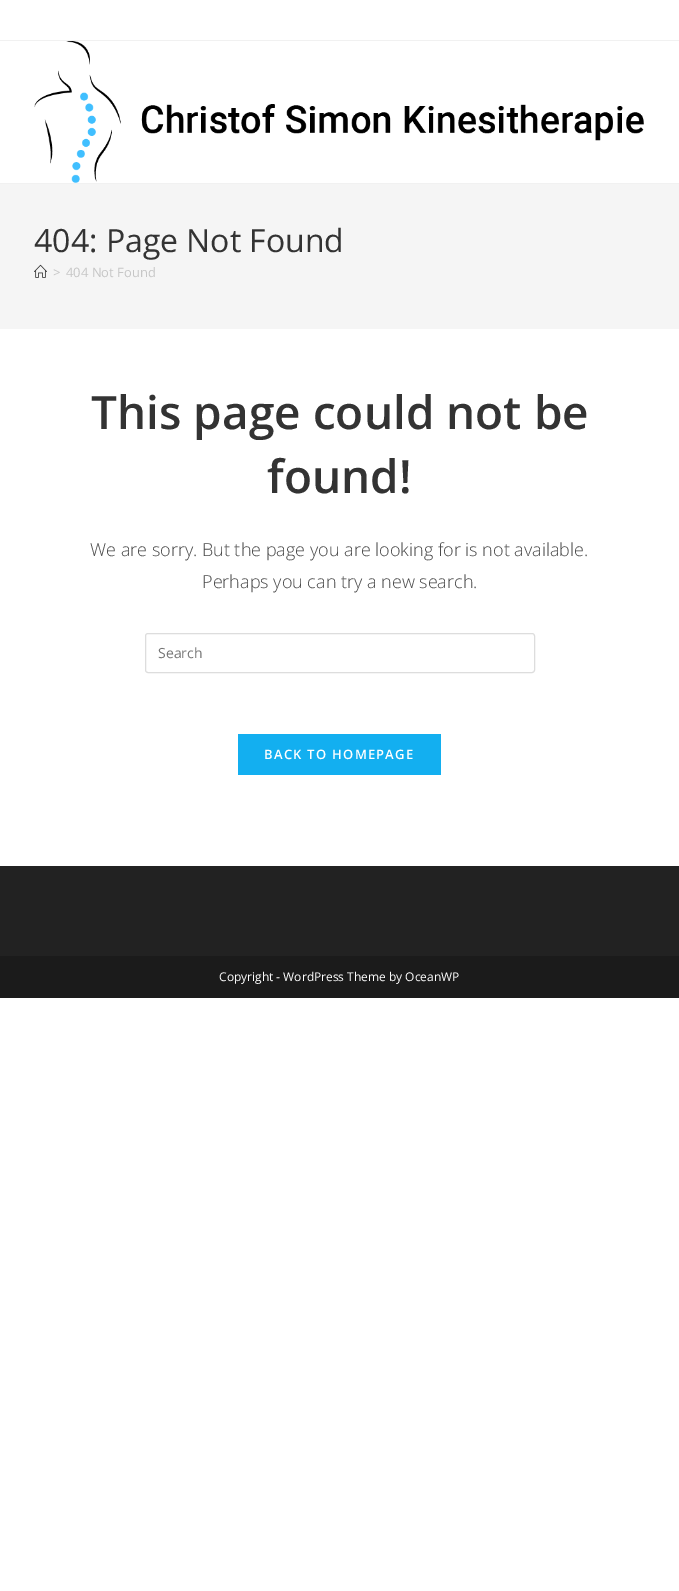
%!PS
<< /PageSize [679 1591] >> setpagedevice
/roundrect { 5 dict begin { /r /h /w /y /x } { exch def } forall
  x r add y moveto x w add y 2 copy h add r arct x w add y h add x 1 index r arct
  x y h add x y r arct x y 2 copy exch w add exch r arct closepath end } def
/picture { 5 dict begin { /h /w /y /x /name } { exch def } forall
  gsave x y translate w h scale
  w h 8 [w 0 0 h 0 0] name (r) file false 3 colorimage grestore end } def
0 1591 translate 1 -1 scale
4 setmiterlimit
1 setgray
0 0 679 1591 rectfill
0.945 setgray
0 40 679 1 rectfill
0 183 679 1 rectfill
(img1.rgb) 34 41 610 142 picture
0.961 setgray
0 184 679 145 rectfill
/OpenSans-Regular [32 0 0 -32 0 0] selectfont
0.2 setgray
34 252 moveto (404: Page Not Found) show
(img2.rgb) 34 264 13 14 picture
/OpenSans-Regular [13 0 0 -13 0 0] selectfont
0.776 setgray
53 277 moveto (>) show
66 277 moveto (404 Not Found) show
/OpenSans-SemiBold [46 0 0 -46 0 0] selectfont
0.2 setgray
91 429 moveto (This page could not be) show
267 493 moveto (found!) show
/OpenSans-Light [18 0 0 -18 0 0] selectfont
0.29 setgray
90 556 moveto (We are sorry. But the page you are looking for is not available.) show
202 588 moveto (Perhaps you can try a new search.) show
0.867 setgray
145.5 633.5 389 39 2.5 roundrect stroke
/OpenSans-Regular [14 0 0 -14 0 0] selectfont
0.459 setgray
158 658 moveto (Search) show
0.075 0.686 0.941 setrgbcolor
238 734 203 41 rectfill
/OpenSans-SemiBold [13 0 0 -13 0 0] selectfont
1 setgray
264 759 moveto 1.25 0 (BACK TO HOMEPAGE) ashow
0.133 setgray
0 866 679 90 rectfill
0.106 setgray
0 956 679 42 rectfill
/OpenSans-Regular [12 0 0 -12 0 0] selectfont
1 setgray
219 981 moveto (Copyright - WordPress Theme by OceanWP) show
showpage
